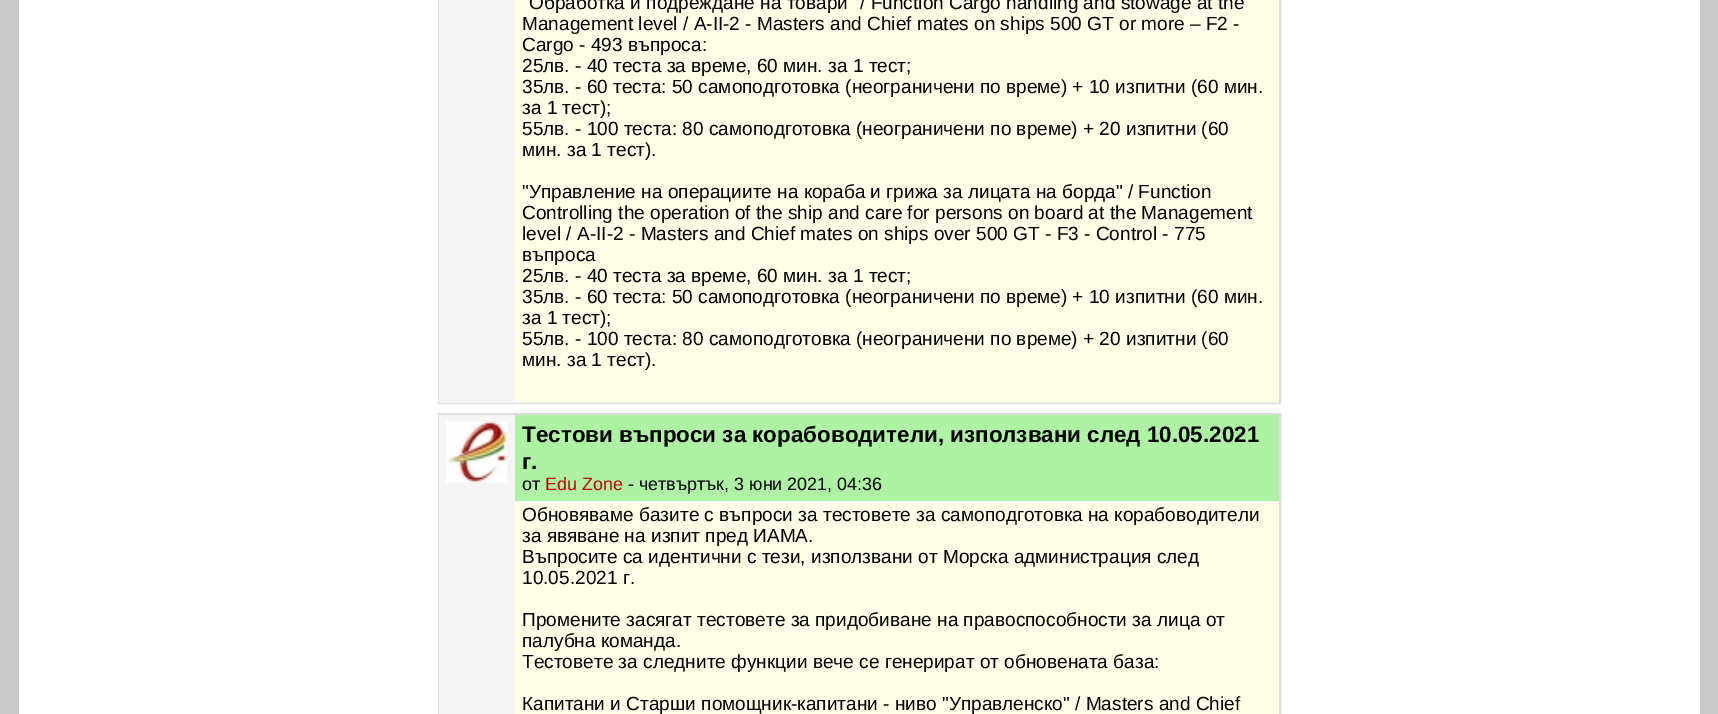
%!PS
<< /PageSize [1718 714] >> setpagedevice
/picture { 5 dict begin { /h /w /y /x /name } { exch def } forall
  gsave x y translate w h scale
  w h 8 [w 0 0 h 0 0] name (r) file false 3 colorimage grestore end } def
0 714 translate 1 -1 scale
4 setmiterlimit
0.788 setgray
0 0 1718 714 rectfill
1 setgray
19 0 1681 714 rectfill
0.867 setgray
2 setlinewidth
439 -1 841 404 rectstroke
0.961 setgray
439 0 76 403 rectfill
1 1 0.91 setrgbcolor
515 0 764 403 rectfill
/LiberationSans-Regular [19.05 0 0 -19.05 0 0] selectfont
0 setgray
529 9 moveto (Обработка и подреждане на товари" / Function Cargo handling and stowage at the) show
522 30 moveto (Management level / A-II-2 - Masters and Chief mates on ships 500 GT or more – F2 -) show
522 51 moveto (Cargo - 493 въпроса:) show
522 72 moveto (25лв. - 40 теста за време, 60 мин. за 1 тест;) show
522 93 moveto (35лв. - 60 теста: 50 самоподготовка \(неограничени по време\) + 10 изпитни \(60 мин.) show
522 114 moveto (за 1 тест\);) show
522 135 moveto (55лв. - 100 теста: 80 самоподготовка \(неограничени по време\) + 20 изпитни \(60) show
522 156 moveto (мин. за 1 тест\).) show
522 198 moveto ("Управление на операциите на кораба и грижа за лицата на борда" / Function) show
522 219 moveto (Controlling the operation of the ship and care for persons on board at the Management) show
522 240 moveto (level / A-II-2 - Masters and Chief mates on ships over 500 GT - F3 - Control - 775) show
522 261 moveto (въпроса) show
522 282 moveto (25лв. - 40 теста за време, 60 мин. за 1 тест;) show
522 303 moveto (35лв. - 60 теста: 50 самоподготовка \(неограничени по време\) + 10 изпитни \(60 мин.) show
522 324 moveto (за 1 тест\);) show
522 345 moveto (55лв. - 100 теста: 80 самоподготовка \(неограничени по време\) + 20 изпитни \(60) show
522 366 moveto (мин. за 1 тест\).) show
0.867 setgray
439 414 841 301 rectstroke
0.961 setgray
439 415 76 299 rectfill
(img1.rgb) 446 421 62 62 picture
0.682 0.949 0.639 setrgbcolor
515 415 764 86 rectfill
0.961 setgray
515 501 764 1 rectfill
/LiberationSans-Bold [22.4 0 0 -22.4 0 0] selectfont
0 setgray
522 442 moveto (Тестови въпроси за корабоводители, използвани след 10.05.2021) show
522 469 moveto (г.) show
/LiberationSans-Regular [17.9 0 0 -17.9 0 0] selectfont
522 490 moveto (от) show
0.749 0 0.02 setrgbcolor
545 490 moveto (Edu Zone) show
0 setgray
628 490 moveto (- четвъртък, 3 юни 2021, 04:36) show
1 1 0.91 setrgbcolor
515 502 764 212 rectfill
/LiberationSans-Regular [19.05 0 0 -19.05 0 0] selectfont
0 setgray
522 521 moveto (Обновяваме базите с въпроси за тестовете за самоподготовка на корабоводители) show
522 542 moveto (за явяване на изпит пред ИАМА.) show
522 563 moveto (Въпросите са идентични с тези, използвани от Морска администрация след) show
522 584 moveto (10.05.2021 г.) show
522 626 moveto (Промените засягат тестовете за придобиване на правоспособности за лица от) show
522 647 moveto (палубна команда.) show
522 668 moveto (Тестовете за следните функции вече се генерират от обновената база:) show
522 710 moveto (Капитани и Старши помощник-капитани - ниво "Управленско" / Masters and Chief) show
showpage
